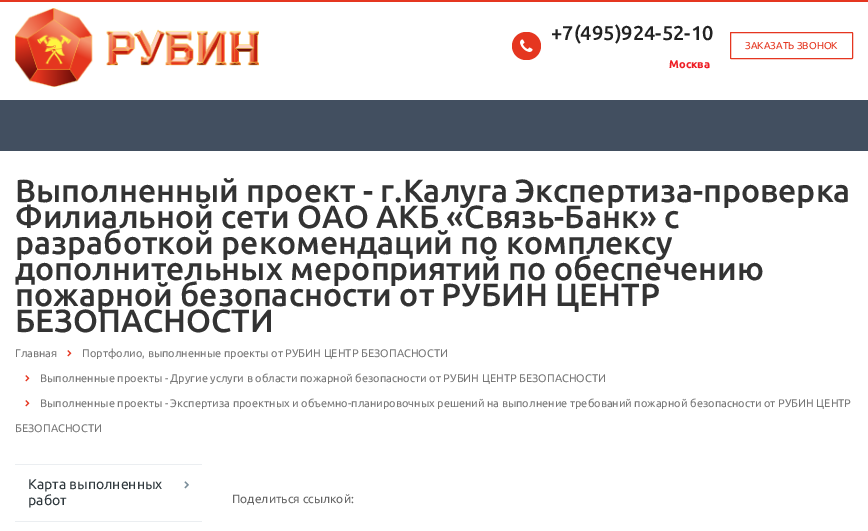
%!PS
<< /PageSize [868 531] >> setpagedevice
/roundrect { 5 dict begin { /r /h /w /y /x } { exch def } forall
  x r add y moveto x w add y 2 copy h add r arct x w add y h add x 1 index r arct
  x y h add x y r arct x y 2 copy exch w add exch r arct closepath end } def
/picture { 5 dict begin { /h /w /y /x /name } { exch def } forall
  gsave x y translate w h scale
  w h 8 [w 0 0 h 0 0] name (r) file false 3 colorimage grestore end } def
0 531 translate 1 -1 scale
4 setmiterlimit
1 setgray
0 0 868 531 rectfill
0.898 0.212 0.125 setrgbcolor
0 0 868 2 rectfill
(img1.rgb) 15 7 244 80 picture
512 32 29 28 14 roundrect fill
(img2.rgb) 520 39 13 13 picture
/Ubuntu-Medium [20 0 0 -20 0 0] selectfont
0.133 setgray
551 40 moveto (+7\(495\)924-52-10) show
/Ubuntu-Bold [11 0 0 -11 0 0] selectfont
0.933 0.114 0.141 setrgbcolor
669 68 moveto (Москва) show
0.898 0.212 0.125 setrgbcolor
730.5 32.5 122 26 0.5 roundrect stroke
/Ubuntu-Regular [10 0 0 -10 0 0] selectfont
745 49 moveto (ЗАКАЗАТЬ ЗВОНОК) show
0.259 0.31 0.376 setrgbcolor
0 100 868 51 rectfill
/Ubuntu-Medium [32 0 0 -32 0 0] selectfont
0.2 setgray
15 202 moveto (Выполненный проект - г.Калуга Экспертиза-проверка) show
15 228 moveto (Филиальной сети ОАО АКБ «Связь-Банк» с) show
15 254 moveto (разработкой рекомендаций по комплексу) show
15 280 moveto (дополнительных мероприятий по обеспечению) show
15 306 moveto (пожарной безопасности от РУБИН ЦЕНТР) show
15 332 moveto (БЕЗОПАСНОСТИ) show
/Ubuntu-Regular [11 0 0 -11 0 0] selectfont
0.467 setgray
15 357 moveto (Главная) show
(img3.rgb) 67 350 5 7 picture
82 357 moveto (Портфолио, выполненные проекты от РУБИН ЦЕНТР БЕЗОПАСНОСТИ) show
(img3.rgb) 25 375 5 7 picture
40 382 moveto (Выполненные проекты - Другие услуги в области пожарной безопасности от РУБИН ЦЕНТР БЕЗОПАСНОСТИ) show
(img3.rgb) 25 400 5 7 picture
40 407 moveto (Выполненные проекты - Экспертиза проектных и объемно-планировочных решений на выполнение требований пожарной безопасности от РУБИН ЦЕНТР) show
15 432 moveto (БЕЗОПАСНОСТИ) show
0.922 0.933 0.945 setrgbcolor
15 464 187 1 rectfill
/Ubuntu-Regular [14 0 0 -14 0 0] selectfont
0.184 0.22 0.239 setrgbcolor
28 489 moveto (Карта выполненных) show
(img4.rgb) 184 481 5 8 picture
28 505 moveto (работ) show
0.922 0.933 0.945 setrgbcolor
15 521 187 1 rectfill
/Ubuntu-Regular [12 0 0 -12 0 0] selectfont
0.4 setgray
232 503 moveto (Поделиться ссылкой:) show
showpage
